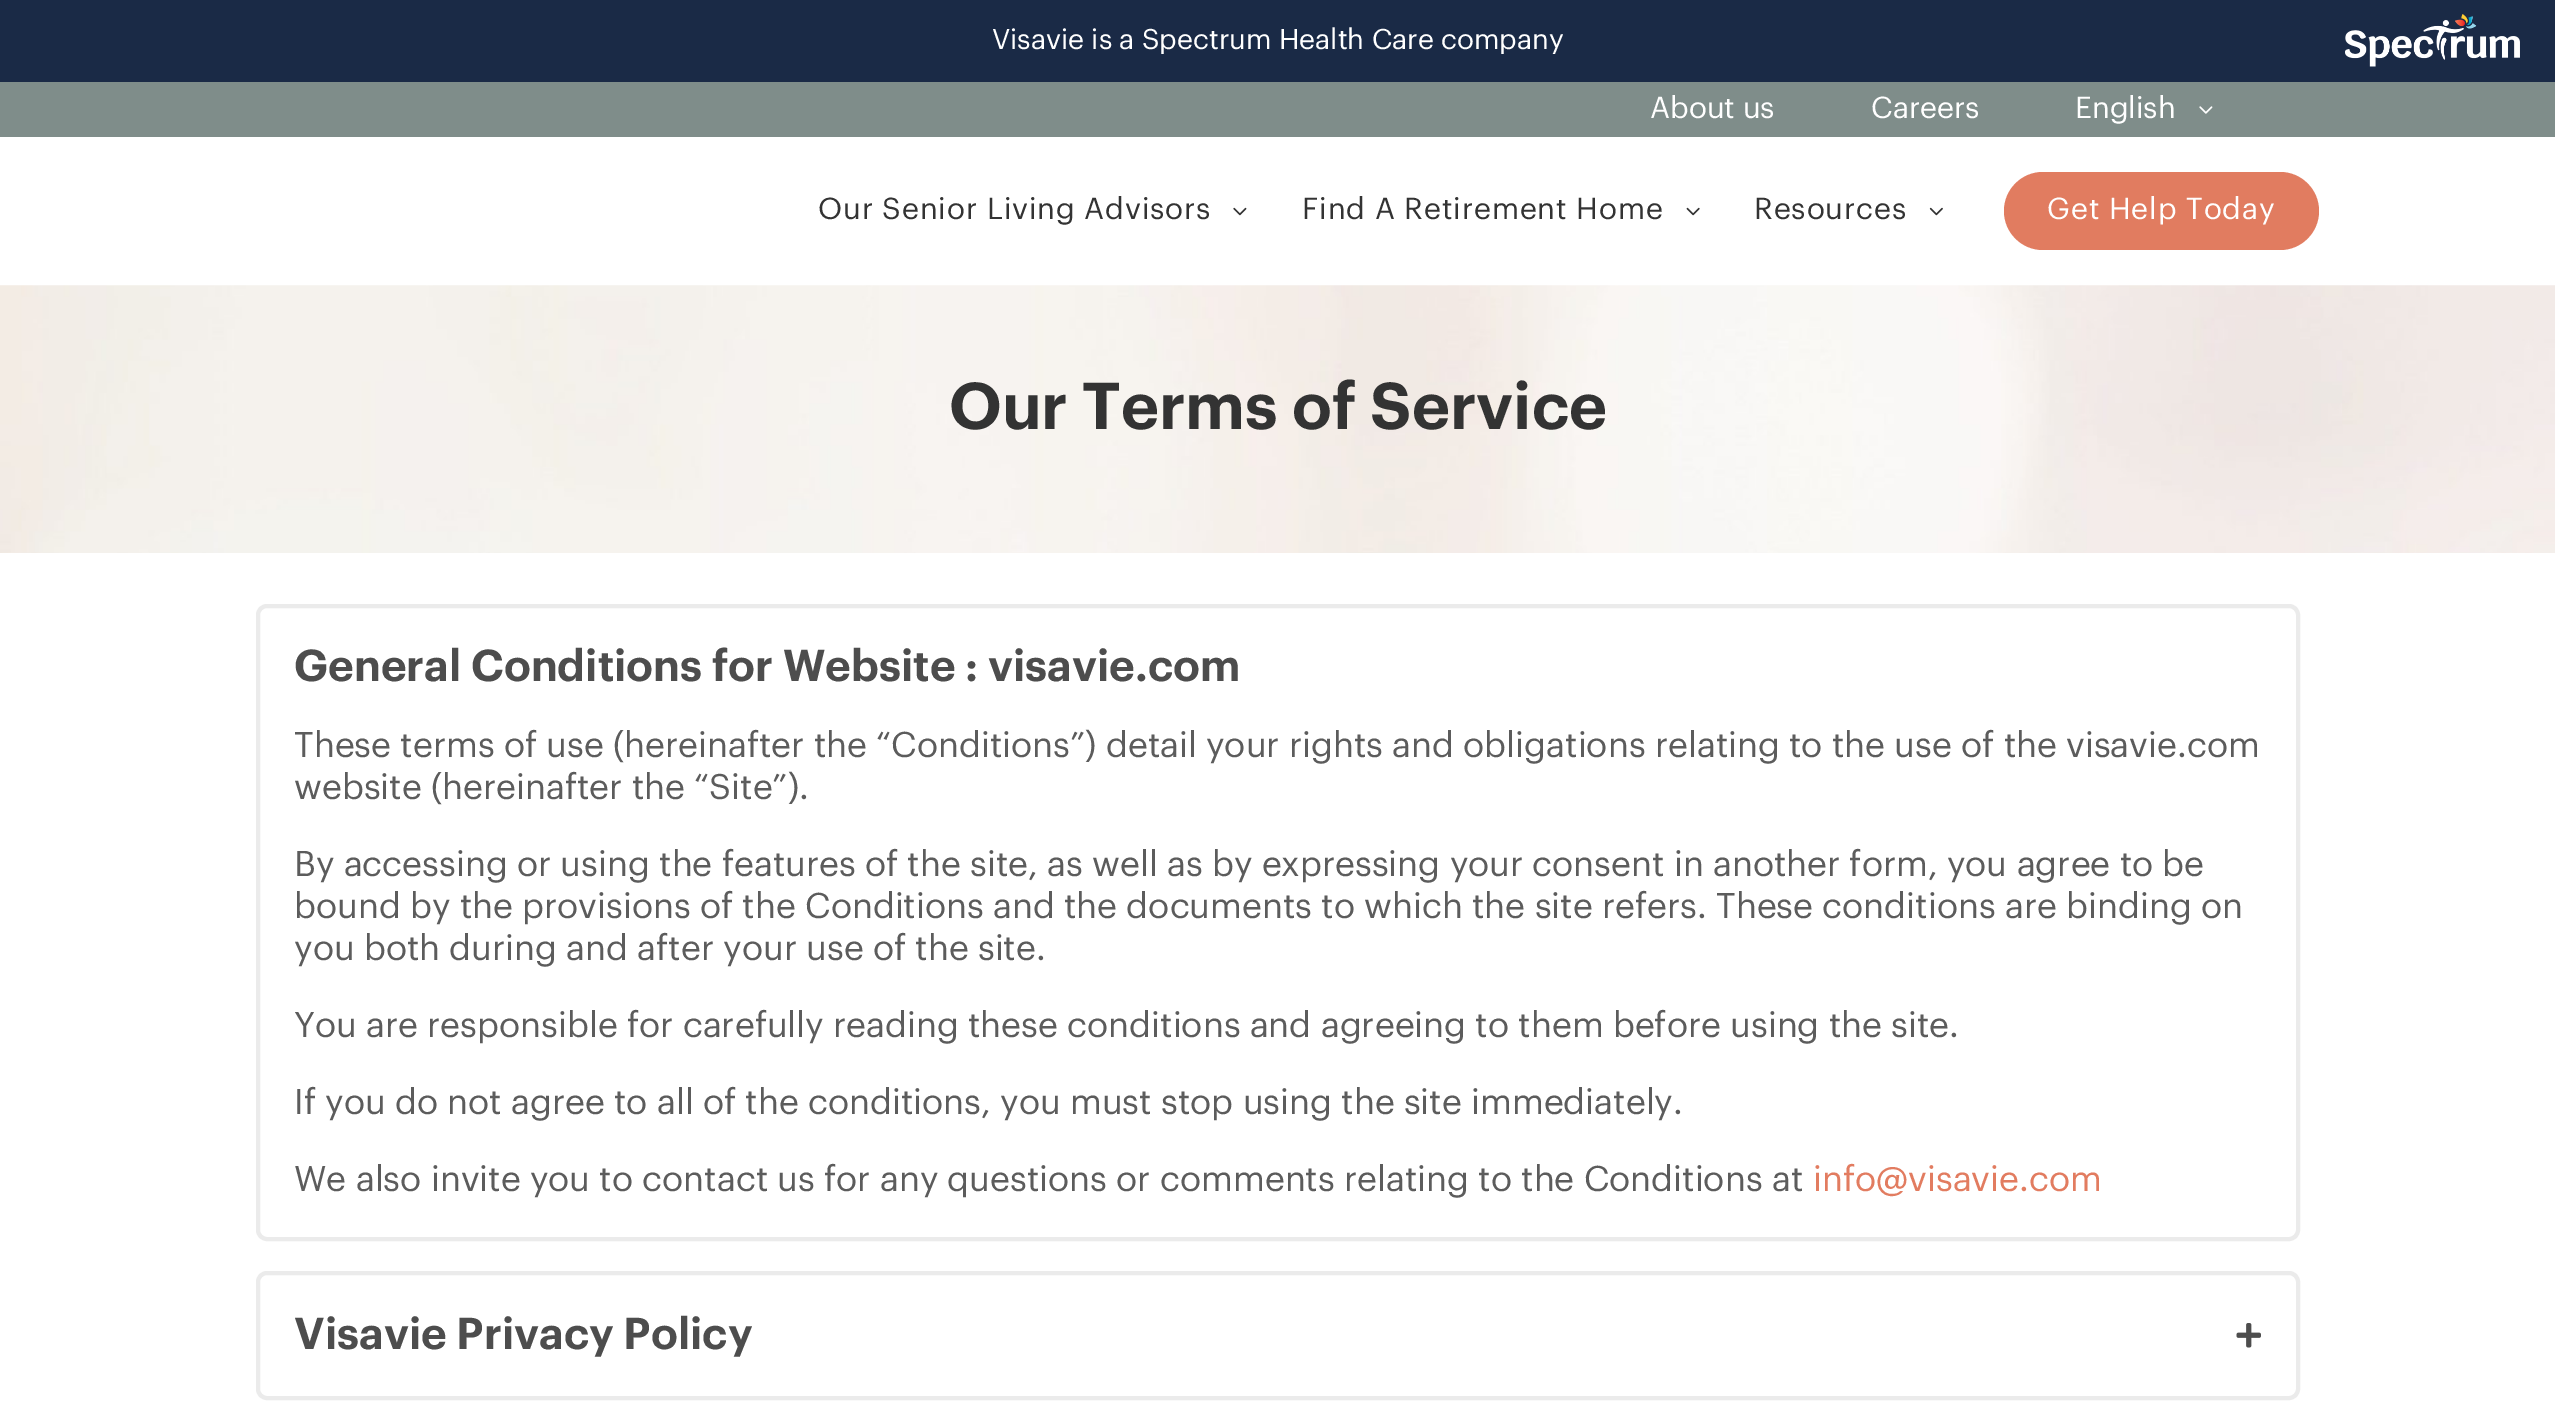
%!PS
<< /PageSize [2555 1428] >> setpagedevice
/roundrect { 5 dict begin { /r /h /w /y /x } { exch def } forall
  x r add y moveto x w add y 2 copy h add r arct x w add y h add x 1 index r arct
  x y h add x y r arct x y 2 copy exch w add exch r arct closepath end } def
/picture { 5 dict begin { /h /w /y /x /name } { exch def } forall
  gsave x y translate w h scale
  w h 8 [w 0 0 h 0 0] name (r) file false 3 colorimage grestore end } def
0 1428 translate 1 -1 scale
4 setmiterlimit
1 setgray
0 0 2555 1428 rectfill
0.102 0.165 0.275 setrgbcolor
0 0 2555 82 rectfill
(img1.rgb) 2345 14 175 53 picture
/Graphik-Regular [28 0 0 -28 0 0] selectfont
1 setgray
992 49 moveto (Visavie is a Spectrum Health Care company) show
0.498 0.553 0.541 setrgbcolor
0 82 2555 55 rectfill
/Graphik-Regular [29.75 0 0 -29.75 0 0] selectfont
1 setgray
1650 118 moveto (About us) show
1871 118 moveto (Careers) show
2075 118 moveto (English) show
(img2.rgb) 2199 106 14 8 picture
0.2 setgray
818 219 moveto 0.9 0 (Our Senior Living Advisors) ashow
(img3.rgb) 1233 207 14 9 picture
1302 219 moveto 0.9 0 (Find A Retirement Home) ashow
(img4.rgb) 1686 207 14 9 picture
1754 219 moveto 0.9 0 (Resources) ashow
(img5.rgb) 1929 207 14 9 picture
0.882 0.486 0.376 setrgbcolor
2004 172 315 78 39 roundrect fill
1 setgray
2047 219 moveto 0.9 0 (Get Help Today) ashow
(img6.rgb) 0 285 2555 268 picture
/Graphik-SemiBold [64.75 0 0 -64.75 0 0] selectfont
0.2 setgray
949 429 moveto (Our Terms of Service) show
0.922 setgray
4 setlinewidth
258 606 2040 633 9 roundrect stroke
/Graphik-SemiBold [43.75 0 0 -43.75 0 0] selectfont
0.302 setgray
294 681 moveto (General Conditions for Website : visavie.com) show
/Graphik-Regular [35 0 0 -35 0 0] selectfont
0.361 setgray
294 757 moveto (These terms of use \(hereinafter the “Conditions”\) detail your rights and obligations relating to the use of the visavie.com) show
294 799 moveto (website \(hereinafter the “Site”\).) show
294 876 moveto (By accessing or using the features of the site, as well as by expressing your consent in another form, you agree to be) show
294 918 moveto (bound by the provisions of the Conditions and the documents to which the site refers. These conditions are binding on) show
294 960 moveto (you both during and after your use of the site.) show
294 1037 moveto (You are responsible for carefully reading these conditions and agreeing to them before using the site.) show
294 1114 moveto (If you do not agree to all of the conditions, you must stop using the site immediately.) show
294 1191 moveto (We also invite you to contact us for any questions or comments relating to the Conditions at) show
0.886 0.486 0.376 setrgbcolor
1813 1191 moveto (info@visavie.com) show
0.922 setgray
258 1273 2040 125 9 roundrect stroke
/Graphik-SemiBold [43.75 0 0 -43.75 0 0] selectfont
0.302 setgray
294 1349 moveto (Visavie Privacy Policy) show
(img7.rgb) 2236 1323 25 25 picture
showpage
